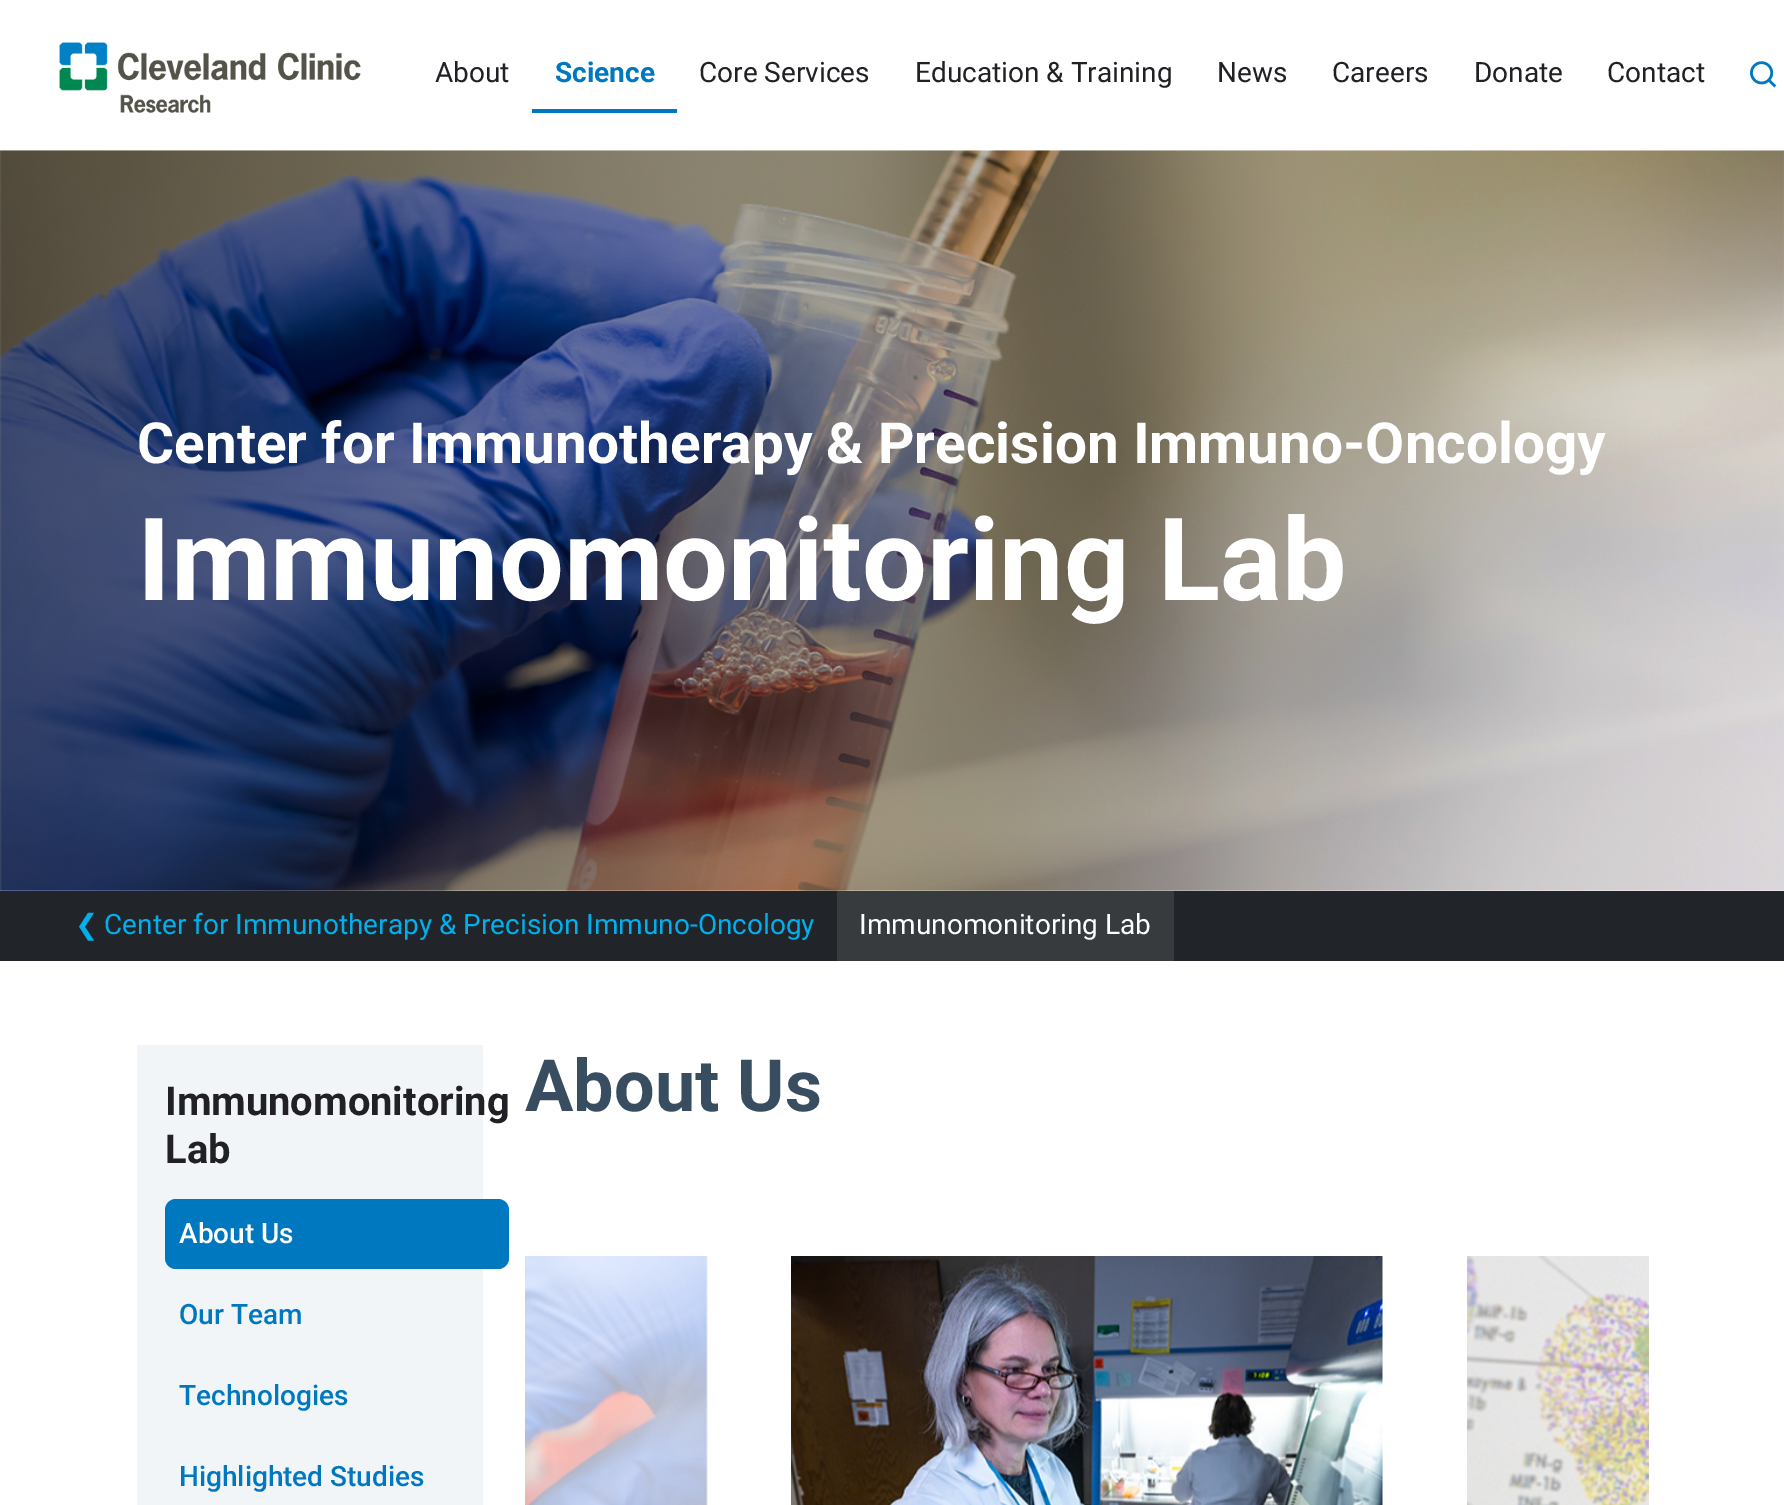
%!PS
<< /PageSize [1784 1505] >> setpagedevice
/roundrect { 5 dict begin { /r /h /w /y /x } { exch def } forall
  x r add y moveto x w add y 2 copy h add r arct x w add y h add x 1 index r arct
  x y h add x y r arct x y 2 copy exch w add exch r arct closepath end } def
/picture { 5 dict begin { /h /w /y /x /name } { exch def } forall
  gsave x y translate w h scale
  w h 8 [w 0 0 h 0 0] name (r) file false 3 colorimage grestore end } def
0 1505 translate 1 -1 scale
4 setmiterlimit
1 setgray
0 0 1784 1505 rectfill
(img1.rgb) 59 42 302 71 picture
/Roboto-Regular [28 0 0 -28 0 0] selectfont
0.125 0.125 0.145 setrgbcolor
435 82 moveto (About) show
0 0.471 0.749 setrgbcolor
532 109 145 4 rectfill
/Roboto-Bold [28 0 0 -28 0 0] selectfont
555 82 moveto (Science) show
/Roboto-Regular [28 0 0 -28 0 0] selectfont
0.125 0.125 0.145 setrgbcolor
699 82 moveto (Core Services) show
915 82 moveto (Education & Training) show
1217 82 moveto (News) show
1332 82 moveto (Careers) show
1474 82 moveto (Donate) show
1607 82 moveto (Contact) show
(img2.rgb) 1750 61 26 27 picture
(img3.rgb) 0 150 1784 741 picture
/Roboto-Bold [56.75 0 0 -56.75 0 0] selectfont
1 setgray
137 463 moveto (Center for Immunotherapy & Precision Immuno-Oncology) show
/Roboto-Bold [115 0 0 -115 0 0] selectfont
137 600 moveto (Immunomonitoring Lab) show
0.129 0.145 0.161 setrgbcolor
0 891 1784 70 rectfill
/DejaVuSans-Regular [28 0 0 -28 0 0] selectfont
0 0.686 0.925 setrgbcolor
75 934 moveto (❮) show
/Roboto-Regular [28 0 0 -28 0 0] selectfont
104 934 moveto (Center for Immunotherapy & Precision Immuno-Oncology) show
0.216 0.231 0.243 setrgbcolor
837 891 337 70 rectfill
1 setgray
859 934 moveto (Immunomonitoring Lab) show
0.945 0.961 0.973 setrgbcolor
137 1045 346 460 rectfill
/Roboto-Bold [39.9 0 0 -39.9 0 0] selectfont
0.125 0.125 0.145 setrgbcolor
165 1115 moveto (Immunomonitoring) show
165 1163 moveto (Lab) show
0 0.471 0.749 setrgbcolor
165 1199 344 70 11 roundrect fill
/Roboto-Medium [28 0 0 -28 0 0] selectfont
1 setgray
179 1243 moveto (About Us) show
0 0.471 0.749 setrgbcolor
179 1324 moveto (Our Team) show
179 1405 moveto (Technologies) show
179 1486 moveto (Highlighted Studies) show
/Roboto-Bold [72 0 0 -72 0 0] selectfont
0.22 0.302 0.373 setrgbcolor
525 1111 moveto (About Us) show
(img4.rgb) 525 1256 183 249 picture
(img5.rgb) 791 1256 592 249 picture
(img6.rgb) 1467 1256 182 249 picture
showpage
